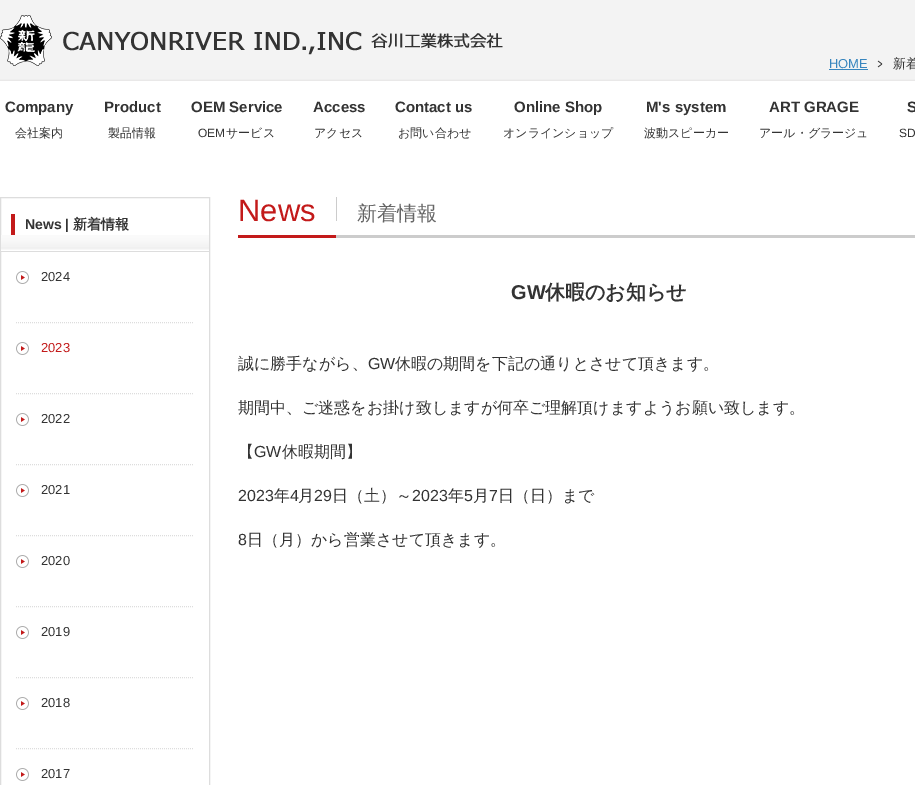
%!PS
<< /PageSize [915 785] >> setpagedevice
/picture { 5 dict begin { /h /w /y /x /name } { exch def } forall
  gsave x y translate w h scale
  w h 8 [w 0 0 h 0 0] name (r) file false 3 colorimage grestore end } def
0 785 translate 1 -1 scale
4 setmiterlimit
1 setgray
0 0 915 785 rectfill
(img2.rgb) 0 0 915 81 picture
(img1.rgb) 877 60 6 8 picture
/LiberationSans-Regular [13 0 0 -13 0 0] selectfont
0.216 0.522 0.745 setrgbcolor
829 68 moveto (HOME) show
829 69 39 1 rectfill
/WenQuanYiZenHei-Medium [13 0 0 -13 0 0] selectfont
0.2 setgray
893 68 moveto (新着) show
(img3.rgb) 0 15 503 51 picture
/LiberationSans-Bold [15 0 0 -15 0 0] selectfont
5 112 moveto (Company) show
/WenQuanYiZenHei-Medium [12 0 0 -12 0 0] selectfont
15 137 moveto (会社案内) show
/LiberationSans-Bold [15 0 0 -15 0 0] selectfont
104 112 moveto (Product) show
/WenQuanYiZenHei-Medium [12 0 0 -12 0 0] selectfont
108 137 moveto (製品情報) show
/LiberationSans-Bold [15 0 0 -15 0 0] selectfont
191 112 moveto (OEM Service) show
/LiberationSans-Regular [12 0 0 -12 0 0] selectfont
198 137 moveto (OEM) show
/WenQuanYiZenHei-Medium [12 0 0 -12 0 0] selectfont
226 137 moveto (サービス) show
/LiberationSans-Bold [15 0 0 -15 0 0] selectfont
313 112 moveto (Access) show
/WenQuanYiZenHei-Medium [12 0 0 -12 0 0] selectfont
314 137 moveto (アクセス) show
/LiberationSans-Bold [15 0 0 -15 0 0] selectfont
395 112 moveto (Contact us) show
/WenQuanYiZenHei-Medium [12 0 0 -12 0 0] selectfont
398 137 moveto (お問い合わせ) show
/LiberationSans-Bold [15 0 0 -15 0 0] selectfont
514 112 moveto (Online Shop) show
/WenQuanYiZenHei-Medium [12 0 0 -12 0 0] selectfont
503 137 moveto (オンラインショップ) show
/LiberationSans-Bold [15 0 0 -15 0 0] selectfont
646 112 moveto (M's system) show
/WenQuanYiZenHei-Medium [12 0 0 -12 0 0] selectfont
644 137 moveto (波動スピーカー) show
/LiberationSans-Bold [15 0 0 -15 0 0] selectfont
769 112 moveto (ART GRAGE) show
/WenQuanYiZenHei-Medium [12 0 0 -12 0 0] selectfont
759 137 moveto (アール・グラージュ) show
/LiberationSans-Bold [15 0 0 -15 0 0] selectfont
907 112 moveto (S) show
/LiberationSans-Regular [12 0 0 -12 0 0] selectfont
899 137 moveto (SD) show
0.867 setgray
0.5 197.5 209 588 rectstroke
(img4.rgb) 1 235 208 17 picture
0.765 0.102 0.102 setrgbcolor
11 214 4 21 rectfill
/LiberationSans-Bold [14 0 0 -14 0 0] selectfont
0.2 setgray
25 229 moveto (News |) show
/WenQuanYiZenHei-Bold [14 0 0 -14 0 0] selectfont
73 229 moveto (新着情報) show
0.867 setgray
[1 1] 0 setdash
newpath 16 322.5 moveto 194 322.5 lineto stroke
(img5.rgb) 16 271 13 13 picture
/LiberationSans-Regular [13 0 0 -13 0 0] selectfont
0.2 setgray
41 281 moveto (2024) show
0.867 setgray
newpath 16 393.5 moveto 194 393.5 lineto stroke
(img5.rgb) 16 342 13 13 picture
0.765 0.102 0.102 setrgbcolor
41 352 moveto (2023) show
0.867 setgray
newpath 16 464.5 moveto 194 464.5 lineto stroke
(img5.rgb) 16 413 13 13 picture
0.2 setgray
41 423 moveto (2022) show
0.867 setgray
newpath 16 535.5 moveto 194 535.5 lineto stroke
(img5.rgb) 16 484 13 13 picture
0.2 setgray
41 494 moveto (2021) show
0.867 setgray
newpath 16 606.5 moveto 194 606.5 lineto stroke
(img5.rgb) 16 555 13 13 picture
0.2 setgray
41 565 moveto (2020) show
0.867 setgray
newpath 16 677.5 moveto 194 677.5 lineto stroke
(img5.rgb) 16 626 13 13 picture
0.2 setgray
41 636 moveto (2019) show
0.867 setgray
newpath 16 748.5 moveto 194 748.5 lineto stroke
(img5.rgb) 16 697 13 13 picture
0.2 setgray
41 707 moveto (2018) show
(img5.rgb) 16 768 13 13 picture
41 778 moveto (2017) show
0.765 0.102 0.102 setrgbcolor
238 235 98 3 rectfill
/LiberationSans-Regular [31 0 0 -31 0 0] selectfont
238 221 moveto (News) show
0.8 setgray
336 197 1 24 rectfill
336 235 579 3 rectfill
/WenQuanYiZenHei-Medium [20 0 0 -20 0 0] selectfont
0.4 setgray
357 220 moveto (新着情報) show
/LiberationSans-Bold [20 0 0 -20 0 0] selectfont
0.2 setgray
511 299 moveto (GW) show
/WenQuanYiZenHei-Bold [20 0 0 -20 0 0] selectfont
545 299 moveto (休暇のお知らせ) show
/WenQuanYiZenHei-Medium [16 0 0 -16 0 0] selectfont
238 369 moveto (誠に勝手ながら、) show
/LiberationSans-Regular [16 0 0 -16 0 0] selectfont
368 369 moveto (GW) show
/WenQuanYiZenHei-Medium [16 0 0 -16 0 0] selectfont
395 369 moveto (休暇の期間を下記の通りとさせて頂きます。) show
238 413 moveto (期間中、ご迷惑をお掛け致しますが何卒ご理解頂けますようお願い致します。) show
238 457 moveto (【) show
/LiberationSans-Regular [16 0 0 -16 0 0] selectfont
254 457 moveto (GW) show
/WenQuanYiZenHei-Medium [16 0 0 -16 0 0] selectfont
282 457 moveto (休暇期間】) show
/LiberationSans-Regular [16 0 0 -16 0 0] selectfont
238 501 moveto (2023) show
/WenQuanYiZenHei-Medium [16 0 0 -16 0 0] selectfont
274 501 moveto (年) show
/LiberationSans-Regular [16 0 0 -16 0 0] selectfont
290 501 moveto (4) show
/WenQuanYiZenHei-Medium [16 0 0 -16 0 0] selectfont
298 501 moveto (月) show
/LiberationSans-Regular [16 0 0 -16 0 0] selectfont
314 501 moveto (29) show
/WenQuanYiZenHei-Medium [16 0 0 -16 0 0] selectfont
332 501 moveto (日（土）～) show
/LiberationSans-Regular [16 0 0 -16 0 0] selectfont
412 501 moveto (2023) show
/WenQuanYiZenHei-Medium [16 0 0 -16 0 0] selectfont
448 501 moveto (年) show
/LiberationSans-Regular [16 0 0 -16 0 0] selectfont
464 501 moveto (5) show
/WenQuanYiZenHei-Medium [16 0 0 -16 0 0] selectfont
473 501 moveto (月) show
/LiberationSans-Regular [16 0 0 -16 0 0] selectfont
489 501 moveto (7) show
/WenQuanYiZenHei-Medium [16 0 0 -16 0 0] selectfont
498 501 moveto (日（日）まで) show
/LiberationSans-Regular [16 0 0 -16 0 0] selectfont
238 545 moveto (8) show
/WenQuanYiZenHei-Medium [16 0 0 -16 0 0] selectfont
247 545 moveto (日（月）から営業させて頂きます。) show
showpage
